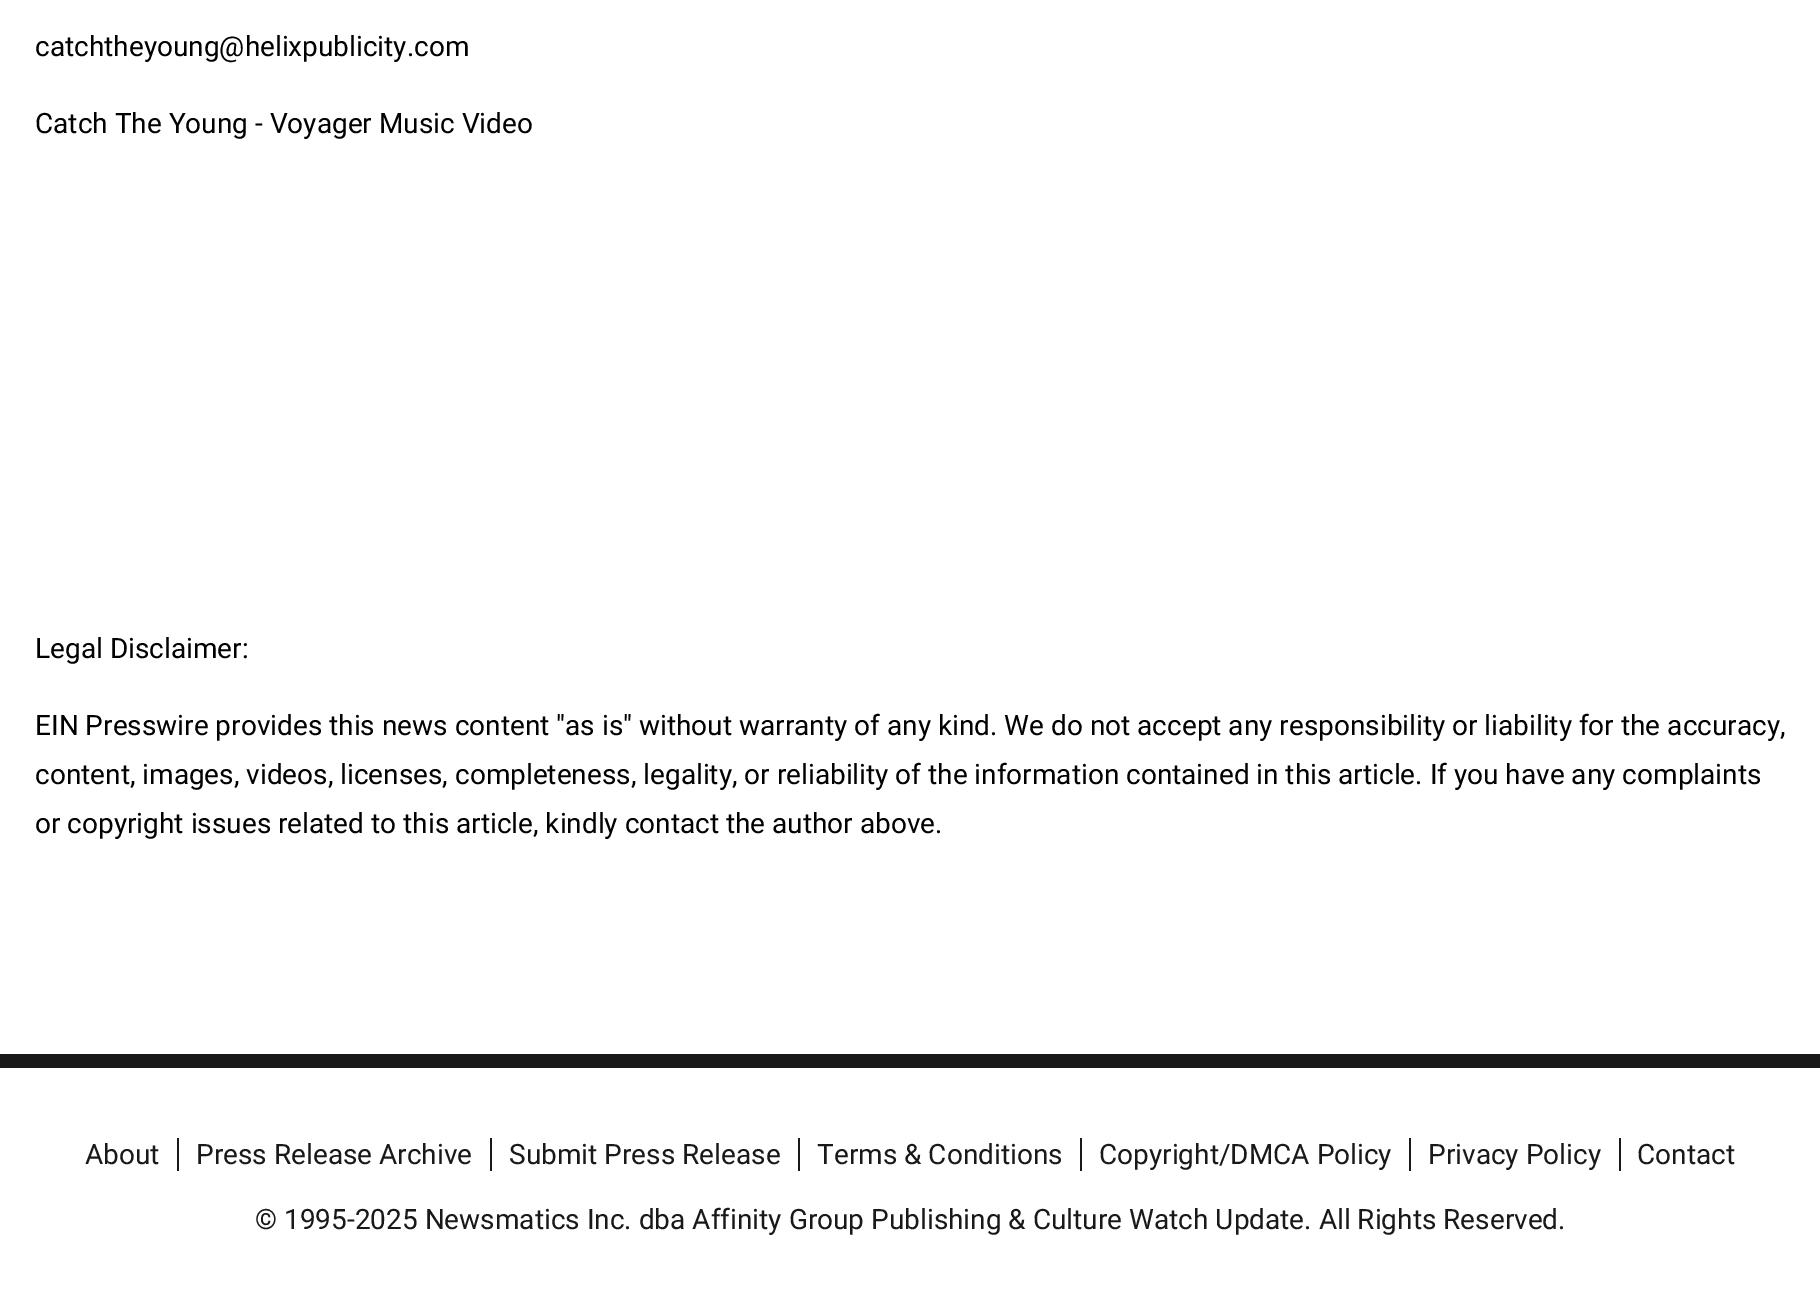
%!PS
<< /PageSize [1820 1306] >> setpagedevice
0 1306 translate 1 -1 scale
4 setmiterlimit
1 setgray
0 0 1820 1306 rectfill
/Roboto-Regular [28 0 0 -28 0 0] selectfont
0 setgray
35 56 moveto (catchtheyoung@helixpublicity.com) show
35 133 moveto (Catch The Young - Voyager Music Video) show
35 658 moveto (Legal Disclaimer:) show
35 735 moveto (EIN Presswire provides this news content "as is" without warranty of any kind. We do not accept any responsibility or liability for the accuracy,) show
35 784 moveto (content, images, videos, licenses, completeness, legality, or reliability of the information contained in this article. If you have any complaints) show
35 833 moveto (or copyright issues related to this article, kindly contact the author above.) show
0.098 setgray
0 1054 1820 14 rectfill
177 1138 2 33 rectfill
85 1164 moveto (About) show
490 1138 2 33 rectfill
196 1164 moveto (Press Release Archive) show
798 1138 2 33 rectfill
509 1164 moveto (Submit Press Release) show
1080 1138 2 33 rectfill
817 1164 moveto (Terms & Conditions) show
1409 1138 2 33 rectfill
1099 1164 moveto (Copyright/DMCA Policy) show
1619 1138 2 33 rectfill
1428 1164 moveto (Privacy Policy) show
1637 1164 moveto (Contact) show
255 1229 moveto (© 1995-2025 Newsmatics Inc. dba Affinity Group Publishing & Culture Watch Update. All Rights Reserved.) show
showpage
